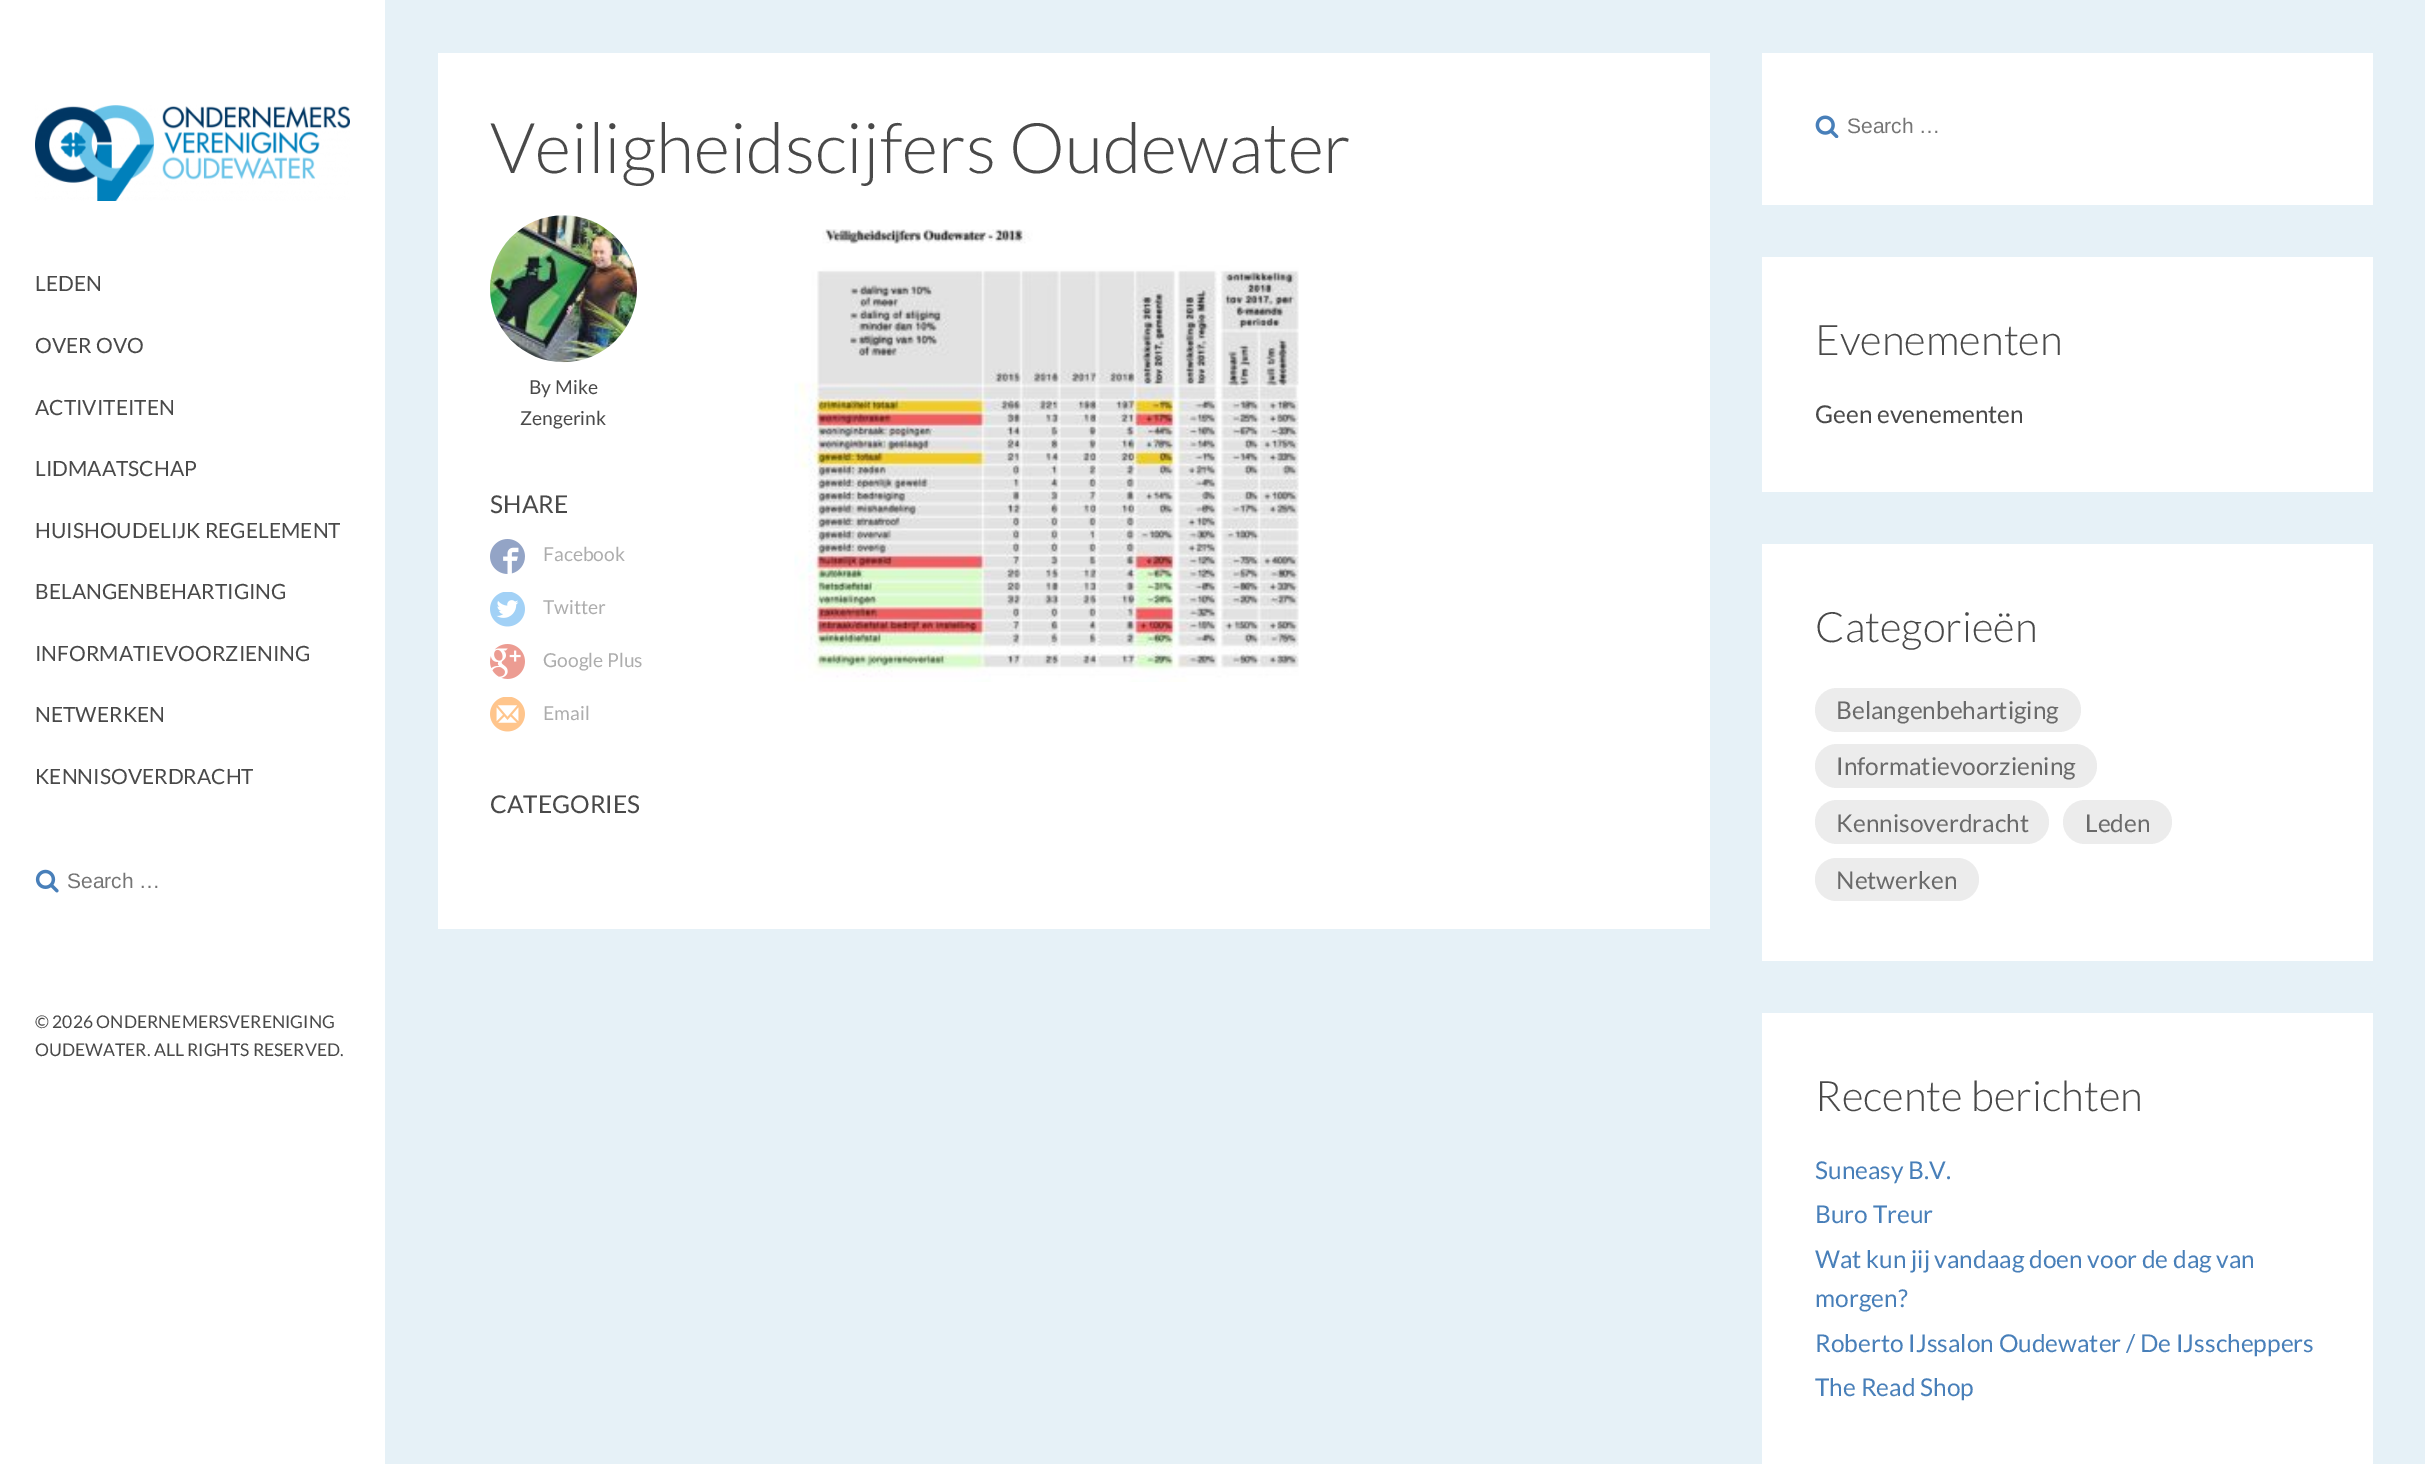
%!PS
<< /PageSize [2425 1464] >> setpagedevice
/roundrect { 5 dict begin { /r /h /w /y /x } { exch def } forall
  x r add y moveto x w add y 2 copy h add r arct x w add y h add x 1 index r arct
  x y h add x y r arct x y 2 copy exch w add exch r arct closepath end } def
/picture { 5 dict begin { /h /w /y /x /name } { exch def } forall
  gsave x y translate w h scale
  w h 8 [w 0 0 h 0 0] name (r) file false 3 colorimage grestore end } def
0 1464 translate 1 -1 scale
4 setmiterlimit
0.902 0.945 0.969 setrgbcolor
0 0 2425 1464 rectfill
1 setgray
0 0 385 1464 rectfill
(img1.rgb) 35 105 315 96 picture
/Lato-Regular [21 0 0 -21 0 0] selectfont
0.286 setgray
35 291 moveto (LEDEN) show
35 353 moveto (OVER OVO) show
35 415 moveto (ACTIVITEITEN) show
35 476 moveto (LIDMAATSCHAP) show
35 538 moveto (HUISHOUDELIJK REGELEMENT) show
35 599 moveto (BELANGENBEHARTIGING) show
35 661 moveto (INFORMATIEVOORZIENING) show
35 722 moveto (NETWERKEN) show
35 784 moveto (KENNISOVERDRACHT) show
(img2.rgb) 35 869 24 24 picture
/LiberationSans-Regular [21 0 0 -21 0 0] selectfont
0.459 setgray
67 888 moveto (Search …) show
/Lato-Regular [17.5 0 0 -17.5 0 0] selectfont
0.286 setgray
35 1028 moveto (© 2026 ONDERNEMERSVERENIGING) show
35 1056 moveto (OUDEWATER. ALL RIGHTS RESERVED.) show
1 setgray
438 53 1272 876 rectfill
/Lato-Light [70 0 0 -70 0 0] selectfont
0.286 setgray
490 173 moveto (Veiligheidscijfers Oudewater) show
(img3.rgb) 490 215 147 148 picture
/Lato-Regular [19.25 0 0 -19.25 0 0] selectfont
529 394 moveto (By Mike) show
520 425 moveto (Zengerink) show
/Lato-Regular [24.5 0 0 -24.5 0 0] selectfont
490 513 moveto (SHARE) show
(img4.rgb) 490 539 35 35 picture
/Lato-Regular [19.25 0 0 -19.25 0 0] selectfont
0.678 setgray
543 561 moveto (Facebook) show
(img5.rgb) 490 592 35 35 picture
543 614 moveto (Twitter) show
(img6.rgb) 490 644 35 35 picture
543 667 moveto (Google Plus) show
(img7.rgb) 490 697 35 35 picture
543 720 moveto (Email) show
/Lato-Regular [24.5 0 0 -24.5 0 0] selectfont
0.286 setgray
490 813 moveto (CATEGORIES) show
(img8.rgb) 794 229 505 453 picture
1 setgray
1762 53 611 152 rectfill
(img9.rgb) 1815 115 24 23 picture
/LiberationSans-Regular [21 0 0 -21 0 0] selectfont
0.459 setgray
1847 133 moveto (Search …) show
1 setgray
1762 257 611 235 rectfill
/Lato-Light [42 0 0 -42 0 0] selectfont
0.286 setgray
1815 355 moveto (Evenementen) show
/Lato-Regular [24.5 0 0 -24.5 0 0] selectfont
1815 423 moveto (Geen evenementen) show
1 setgray
1762 544 611 417 rectfill
/Lato-Light [42 0 0 -42 0 0] selectfont
0.286 setgray
1815 642 moveto (Categorieën) show
0.925 setgray
1815 688 266 44 22 roundrect fill
/Lato-Regular [24.5 0 0 -24.5 0 0] selectfont
0.416 setgray
1836 719 moveto (Belangenbehartiging) show
0.925 setgray
1815 744 282 44 22 roundrect fill
0.416 setgray
1836 775 moveto (Informatievoorziening) show
0.925 setgray
1815 800 234 44 22 roundrect fill
0.416 setgray
1836 832 moveto (Kennisoverdracht) show
0.925 setgray
2063 800 109 44 22 roundrect fill
0.416 setgray
2085 832 moveto (Leden) show
0.925 setgray
1815 858 164 43 21.5 roundrect fill
0.416 setgray
1836 889 moveto (Netwerken) show
1 setgray
1762 1013 611 451 rectfill
/Lato-Light [42 0 0 -42 0 0] selectfont
0.286 setgray
1815 1111 moveto (Recente berichten) show
/Lato-Regular [24.5 0 0 -24.5 0 0] selectfont
0.282 0.498 0.725 setrgbcolor
1815 1179 moveto (Suneasy B.V.) show
1815 1223 moveto (Buro Treur) show
1815 1268 moveto (Wat kun jij vandaag doen voor de dag van) show
1815 1307 moveto (morgen?) show
1815 1352 moveto (Roberto IJssalon Oudewater / De IJsscheppers) show
1815 1396 moveto (The Read Shop) show
showpage
